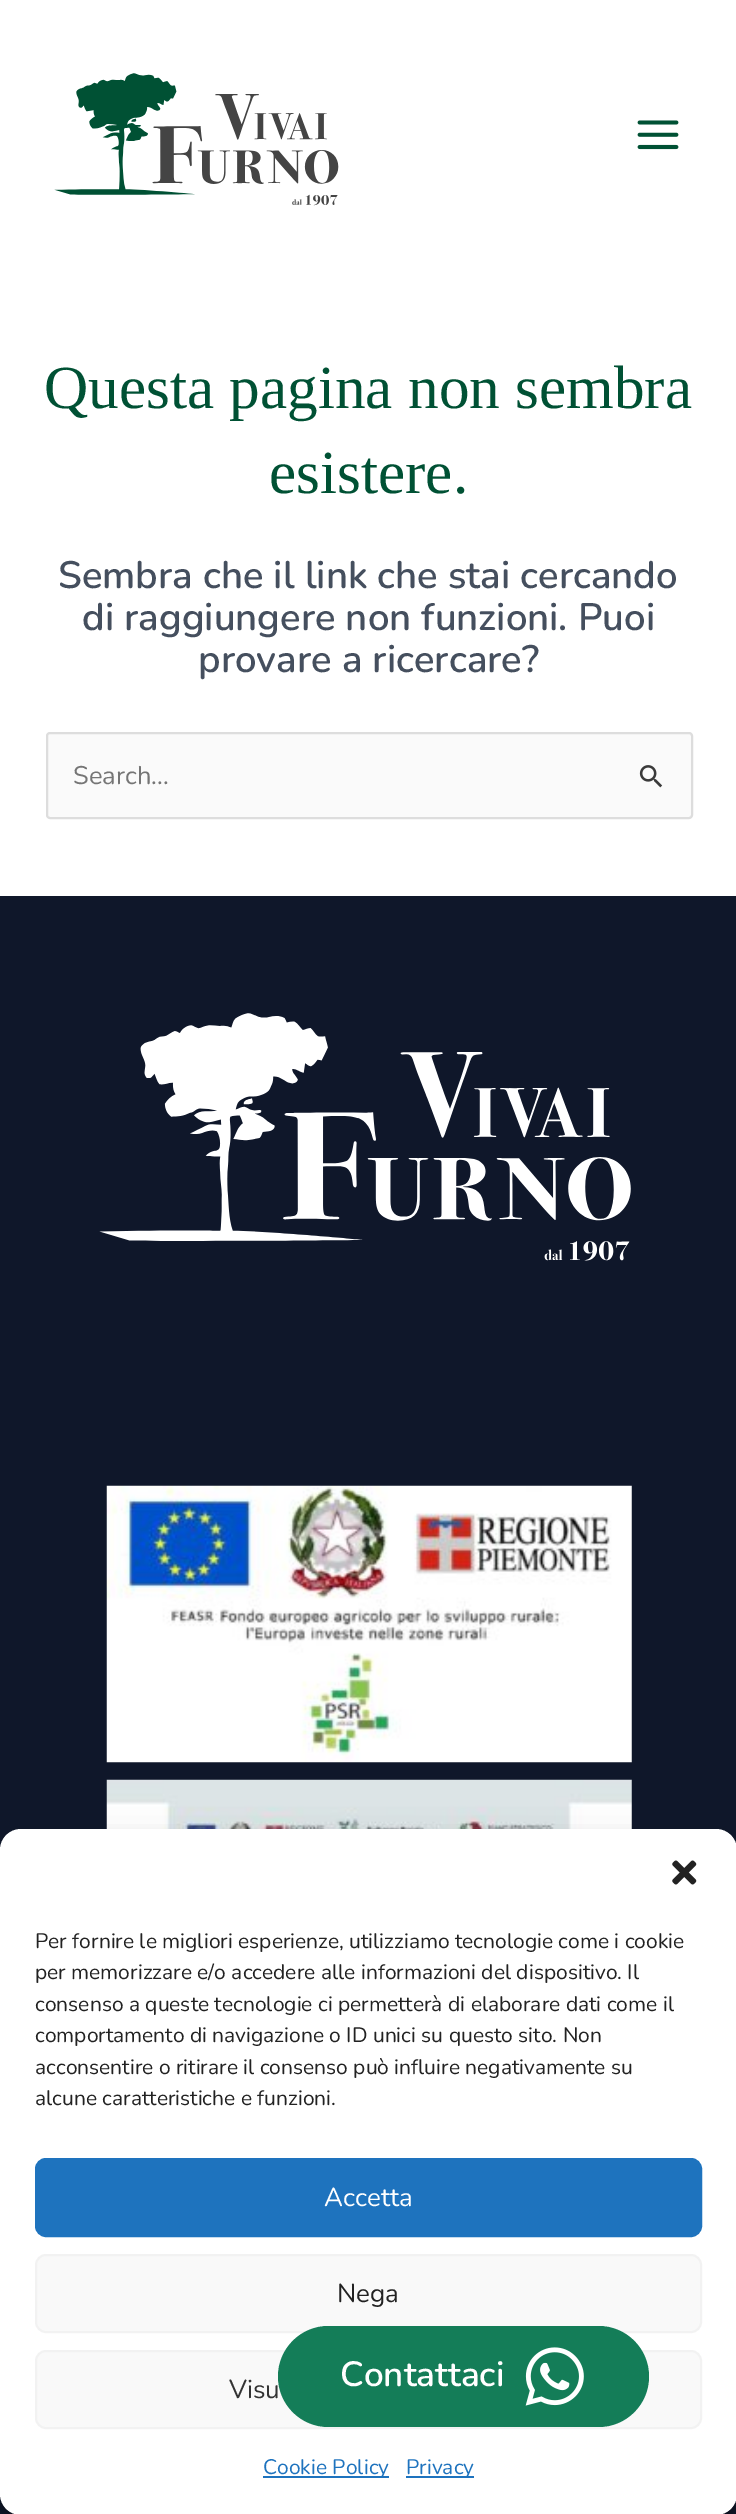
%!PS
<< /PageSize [736 2514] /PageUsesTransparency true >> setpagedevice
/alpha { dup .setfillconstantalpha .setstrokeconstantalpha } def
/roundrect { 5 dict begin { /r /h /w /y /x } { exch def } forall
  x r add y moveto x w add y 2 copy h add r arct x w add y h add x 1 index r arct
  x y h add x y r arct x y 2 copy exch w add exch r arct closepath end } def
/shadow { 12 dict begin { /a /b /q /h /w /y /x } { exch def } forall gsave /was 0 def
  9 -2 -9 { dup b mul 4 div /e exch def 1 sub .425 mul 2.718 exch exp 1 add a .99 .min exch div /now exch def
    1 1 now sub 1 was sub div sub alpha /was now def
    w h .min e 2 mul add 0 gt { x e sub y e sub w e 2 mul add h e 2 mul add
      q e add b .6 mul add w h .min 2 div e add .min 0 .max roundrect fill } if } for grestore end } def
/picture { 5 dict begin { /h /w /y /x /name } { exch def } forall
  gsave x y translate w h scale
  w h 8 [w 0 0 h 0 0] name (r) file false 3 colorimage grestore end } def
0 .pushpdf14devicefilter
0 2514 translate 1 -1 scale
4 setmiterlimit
1 setgray
0 0 736 2514 rectfill
(img1.rgb) 54 73 285 133 picture
(img2.rgb) 637 120 42 30 picture
/LiberationSerif-Regular [61.25 0 0 -61.25 0 0] selectfont
0 0.318 0.204 setrgbcolor
44 408 moveto (Questa pagina non sembra) show
269 493 moveto (esistere.) show
/Nunito-SemiBold [38.25 0 0 -38.25 0 0] selectfont
0.271 0.31 0.369 setrgbcolor
58 588 moveto (Sembra che il link che stai cercando) show
82 630 moveto (di raggiungere non funzioni. Puoi) show
198 672 moveto (provare a ricercare?) show
0.98 setgray
47 733 645 85 3 roundrect gsave fill grestore
0.867 setgray
2 setlinewidth
stroke
/Nunito-Regular [25.5 0 0 -25.5 0 0] selectfont
0.459 setgray
73 784 moveto (Search...) show
(img3.rgb) 639 765 24 23 picture
0.059 0.09 0.165 setrgbcolor
0 896 736 954 rectfill
(img4.rgb) 99 1013 532 248 picture
(img5.rgb) 106 1485 526 278 picture
(img6.rgb) 106 1779 526 50 picture
0 2494 736 20 rectfill
0 setgray
0 1839 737 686 21 5 0.23 shadow
0 1846 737 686 21 17.5 0.19 shadow
1 setgray
0 1829 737 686 21 roundrect fill
(img7.rgb) 672 1860 25 25 picture
/Nunito-Regular [21 0 0 -21 0 0] selectfont
0.133 setgray
35 1948 moveto (Per fornire le migliori esperienze, utilizziamo tecnologie come i cookie) show
35 1979 moveto (per memorizzare e/o accedere alle informazioni del dispositivo. Il) show
35 2011 moveto (consenso a queste tecnologie ci permetterà di elaborare dati come il) show
35 2042 moveto (comportamento di navigazione o ID unici su questo sito. Non) show
35 2074 moveto (acconsentire o ritirare il consenso può influire negativamente su) show
35 2105 moveto (alcune caratteristiche e funzioni.) show
0.118 0.451 0.745 setrgbcolor
36 2159 665 77 10 roundrect gsave fill grestore
stroke
/Nunito-Regular [26 0 0 -26 0 0] selectfont
1 setgray
324 2206 moveto (Accetta) show
0.976 setgray
36 2255 665 77 10 roundrect gsave fill grestore
0.949 setgray
stroke
0.133 setgray
337 2302 moveto (Nega) show
0.976 setgray
36 2351 665 77 10 roundrect gsave fill grestore
0.949 setgray
stroke
0.2 setgray
229 2398 moveto (Visu) show
0.118 0.451 0.745 setrgbcolor
263 2476 126 2 rectfill
/Nunito-Regular [21 0 0 -21 0 0] selectfont
263 2474 moveto (Cookie Policy) show
406 2476 68 2 rectfill
406 2474 moveto (Privacy) show
0.078 0.49 0.345 setrgbcolor
278 2326 371 101 50.5 roundrect fill
/Nunito-SemiBold [35 0 0 -35 0 0] selectfont
1 setgray
340 2386 moveto (Contattaci) show
(img8.rgb) 525 2347 59 59 picture
.poppdf14devicefilter showpage
